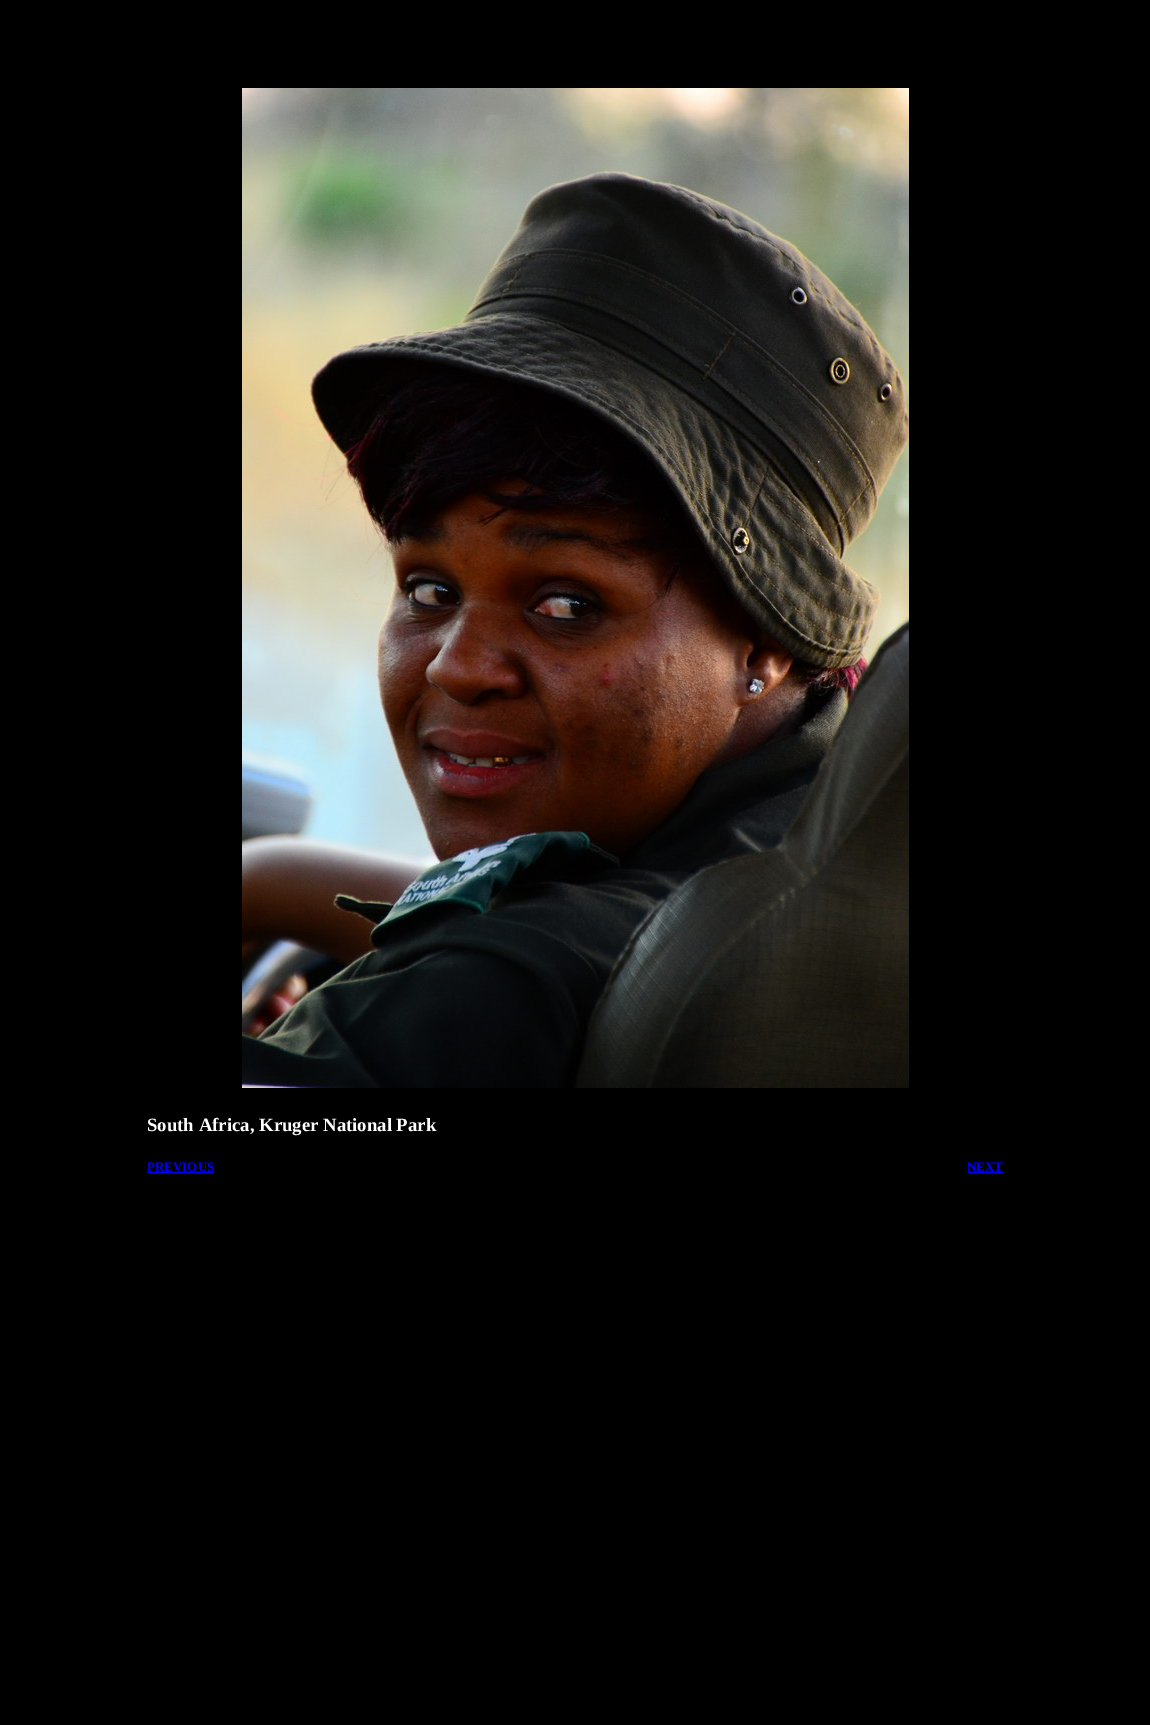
%!PS
<< /PageSize [1150 1725] >> setpagedevice
/picture { 5 dict begin { /h /w /y /x /name } { exch def } forall
  gsave x y translate w h scale
  w h 8 [w 0 0 h 0 0] name (r) file false 3 colorimage grestore end } def
0 1725 translate 1 -1 scale
4 setmiterlimit
0 setgray
0 0 1150 1725 rectfill
(img1.rgb) 242 88 667 1000 picture
/LiberationSerif-Bold [18.75 0 0 -18.75 0 0] selectfont
1 setgray
147 1131 moveto (South Africa, Kruger National Park) show
/LiberationSerif-Bold [13 0 0 -13 0 0] selectfont
0 0 1 setrgbcolor
147 1171 moveto (PREVIOUS) show
147 1172 67 1 rectfill
967 1171 moveto (NEXT) show
967 1172 36 1 rectfill
showpage
